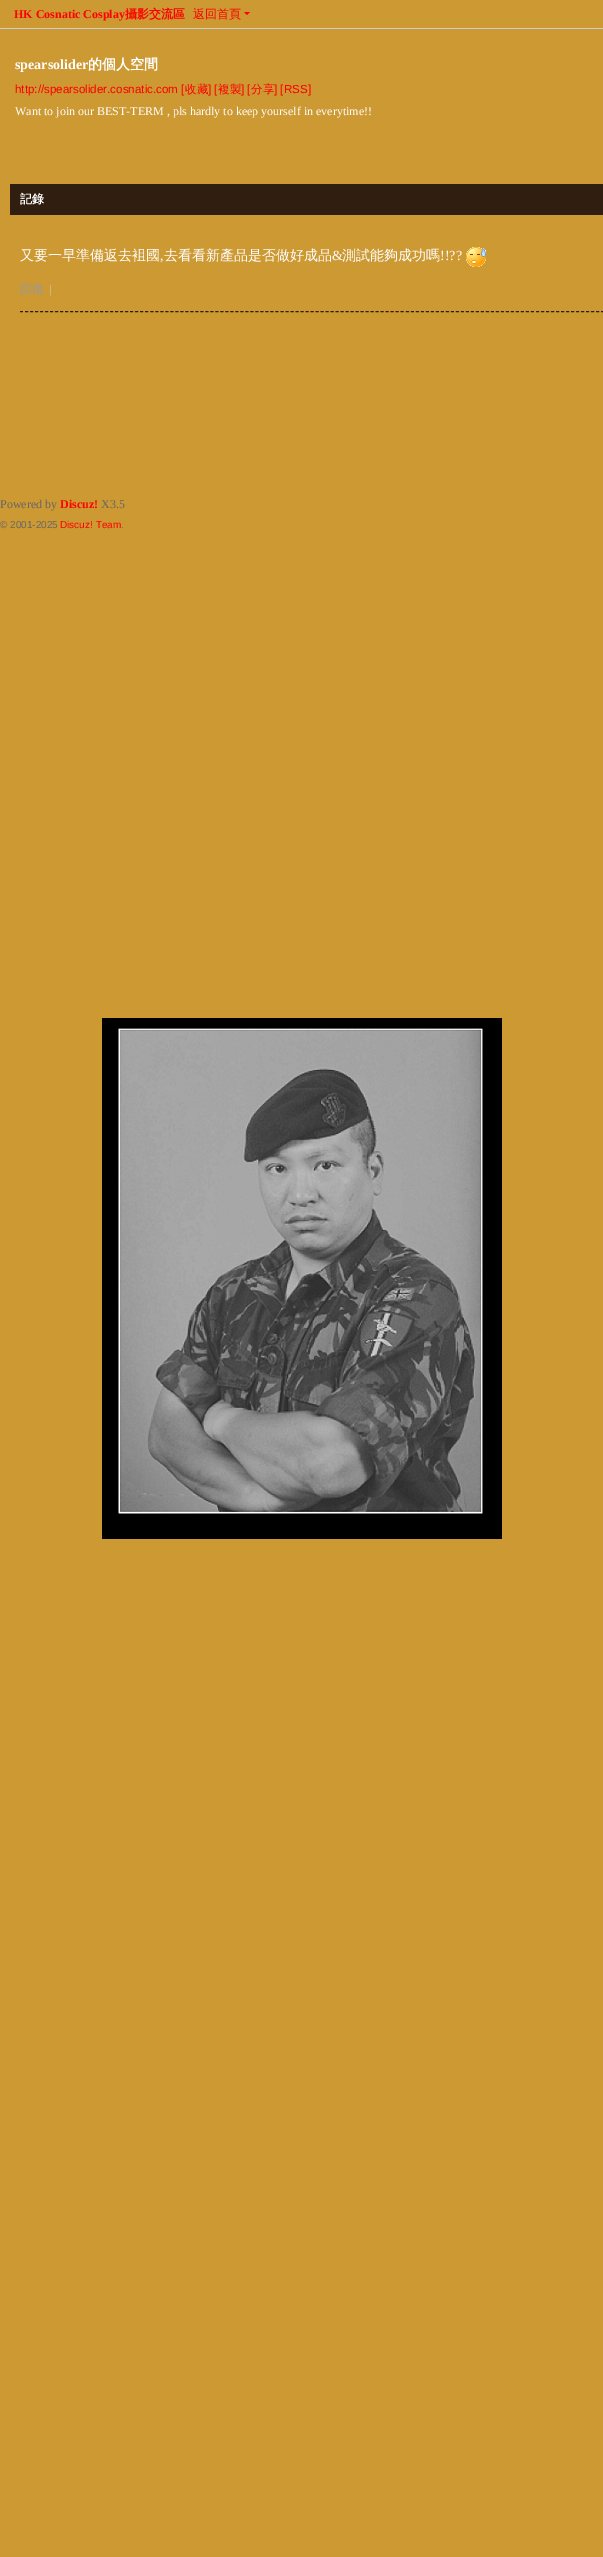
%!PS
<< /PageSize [603 2557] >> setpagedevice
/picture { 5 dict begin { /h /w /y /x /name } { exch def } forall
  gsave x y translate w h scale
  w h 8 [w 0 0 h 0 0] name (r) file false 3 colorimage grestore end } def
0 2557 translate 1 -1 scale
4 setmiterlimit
0.8 0.6 0.2 setrgbcolor
0 0 603 2557 rectfill
(img1.rgb) 102 1018 400 521 picture
0.804 setgray
0 28 603 1 rectfill
/LiberationSerif-Bold [12 0 0 -12 0 0] selectfont
1 0 0 setrgbcolor
14 18 moveto (HK Cosnatic Cosplay) show
/WenQuanYiZenHei-Bold [12 0 0 -12 0 0] selectfont
125 18 moveto (攝影交流區) show
/WenQuanYiZenHei-Medium [12 0 0 -12 0 0] selectfont
193 18 moveto (返回首頁) show
newpath 244 12 moveto 250 12 lineto 247 15 lineto closepath fill
/LiberationSerif-Bold [14 0 0 -14 0 0] selectfont
1 setgray
15 69 moveto (spearsolider) show
/WenQuanYiZenHei-Bold [14 0 0 -14 0 0] selectfont
88 69 moveto (的個人空間) show
/LiberationSans-Regular [11.6 0 0 -11.6 0 0] selectfont
1 0 0 setrgbcolor
15 93 moveto (http://spearsolider.cosnatic.com [) show
/WenQuanYiZenHei-Medium [11.6 0 0 -11.6 0 0] selectfont
185 93 moveto (收藏) show
/LiberationSans-Regular [11.6 0 0 -11.6 0 0] selectfont
208 93 moveto (] [) show
/WenQuanYiZenHei-Medium [11.6 0 0 -11.6 0 0] selectfont
218 93 moveto (複製) show
/LiberationSans-Regular [11.6 0 0 -11.6 0 0] selectfont
241 93 moveto (] [) show
/WenQuanYiZenHei-Medium [11.6 0 0 -11.6 0 0] selectfont
251 93 moveto (分享) show
/LiberationSans-Regular [11.6 0 0 -11.6 0 0] selectfont
274 93 moveto (] [RSS]) show
/LiberationSerif-Regular [12 0 0 -12 0 0] selectfont
1 setgray
15 115 moveto (Want to join our BEST-TERM , pls hardly to keep yourself in everytime!!) show
0.188 0.118 0.063 setrgbcolor
10 184 593 31 rectfill
/WenQuanYiZenHei-Bold [12 0 0 -12 0 0] selectfont
1 setgray
20 203 moveto (記錄) show
0.188 0.118 0.063 setrgbcolor
[3 2.01] 0 setdash
newpath 20 311.5 moveto 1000 311.5 lineto stroke
/WenQuanYiZenHei-Medium [14 0 0 -14 0 0] selectfont
1 setgray
20 260 moveto (又要一早準備返去袓國) show
/LiberationSerif-Regular [14 0 0 -14 0 0] selectfont
160 260 moveto (,) show
/WenQuanYiZenHei-Medium [14 0 0 -14 0 0] selectfont
164 260 moveto (去看看新產品是否做好成品) show
/LiberationSerif-Regular [14 0 0 -14 0 0] selectfont
332 260 moveto (&) show
/WenQuanYiZenHei-Medium [14 0 0 -14 0 0] selectfont
342 260 moveto (測試能夠成功嗎) show
/LiberationSerif-Regular [14 0 0 -14 0 0] selectfont
440 260 moveto (!!??) show
(img2.rgb) 466 247 20 20 picture
/WenQuanYiZenHei-Medium [12 0 0 -12 0 0] selectfont
0.6 setgray
20 293 moveto (回復) show
/LiberationSerif-Regular [12 0 0 -12 0 0] selectfont
0.8 setgray
49 293 moveto (|) show
0.4 setgray
0 508 moveto (Powered by) show
/LiberationSerif-Bold [12 0 0 -12 0 0] selectfont
1 0 0 setrgbcolor
60 508 moveto (Discuz!) show
/LiberationSerif-Regular [12 0 0 -12 0 0] selectfont
0.4 setgray
101 508 moveto (X3.5) show
/LiberationSans-Regular [10 0 0 -10 0 0] selectfont
0 528 moveto (© 2001-2025) show
1 0 0 setrgbcolor
60 528 moveto (Discuz! Team) show
0.4 setgray
121 528 moveto (.) show
showpage
